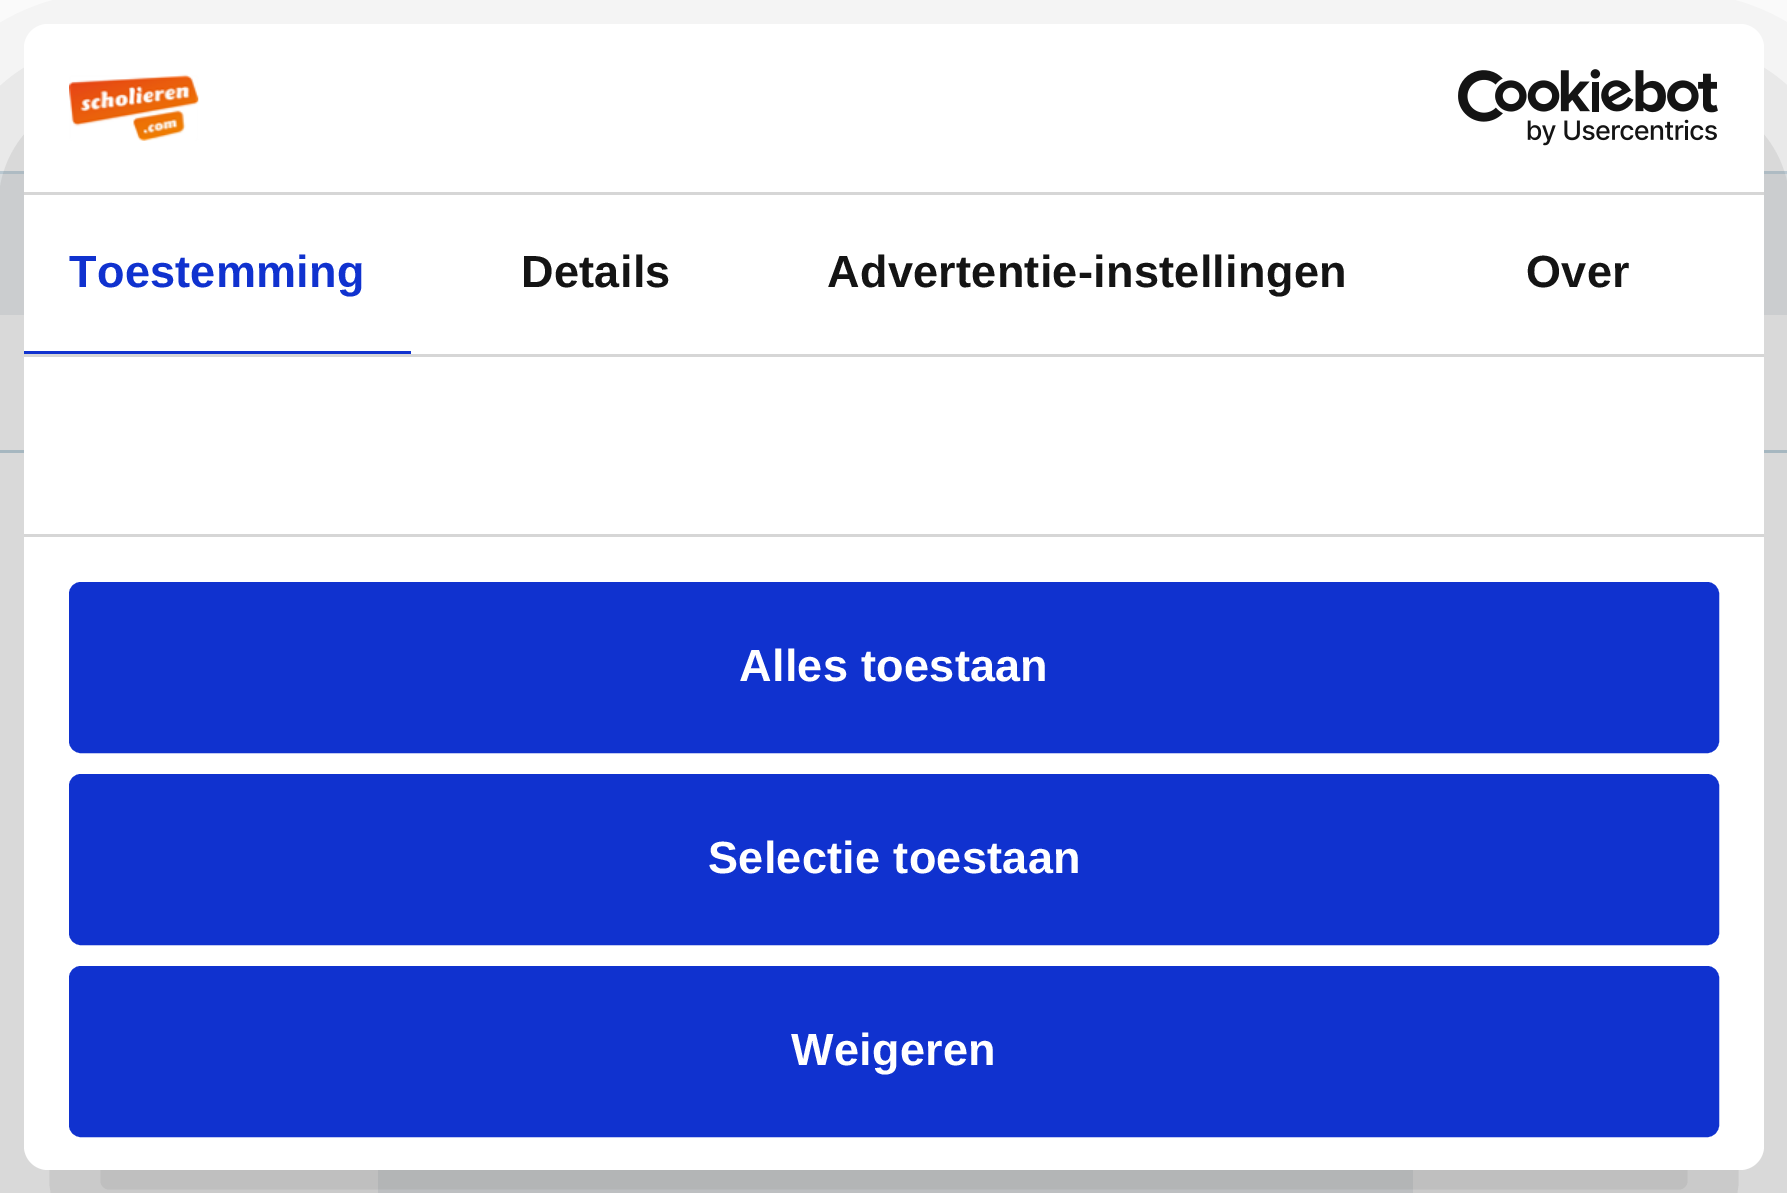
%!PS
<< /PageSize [1787 1193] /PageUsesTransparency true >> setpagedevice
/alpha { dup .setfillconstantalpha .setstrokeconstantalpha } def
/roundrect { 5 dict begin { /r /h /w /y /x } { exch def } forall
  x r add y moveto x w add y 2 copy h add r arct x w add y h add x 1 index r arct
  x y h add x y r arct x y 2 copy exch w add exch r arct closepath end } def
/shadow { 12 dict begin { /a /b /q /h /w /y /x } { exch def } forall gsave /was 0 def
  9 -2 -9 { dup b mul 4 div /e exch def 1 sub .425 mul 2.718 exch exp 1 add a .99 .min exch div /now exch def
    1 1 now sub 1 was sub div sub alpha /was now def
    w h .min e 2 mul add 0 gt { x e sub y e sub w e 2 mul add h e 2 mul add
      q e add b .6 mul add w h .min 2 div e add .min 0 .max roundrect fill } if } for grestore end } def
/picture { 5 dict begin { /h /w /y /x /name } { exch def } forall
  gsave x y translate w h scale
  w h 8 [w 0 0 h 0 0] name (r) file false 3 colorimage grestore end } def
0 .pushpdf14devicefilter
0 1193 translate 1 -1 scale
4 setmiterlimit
1 setgray
0 0 1787 1193 rectfill
0.8 0.863 0.898 setrgbcolor
0 171 1787 3 rectfill
0.933 0.949 0.957 setrgbcolor
0 174 1787 141 rectfill
0.769 0.847 0.886 setrgbcolor
0 450 1787 3 rectfill
0.933 0.949 0.961 setrgbcolor
378 1170 1035 23 rectfill
0 setgray
24 120 1740 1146 24 102 0.3 shadow
1 setgray
24 24 1740 1146 24 roundrect fill
0.839 setgray
24 192 1740 3 rectfill
(img1.rgb) 69 74 130 67 picture
(img2.rgb) 1458 69 260 77 picture
24 354 1740 3 rectfill
0.063 0.196 0.812 setrgbcolor
24 351 387 3 rectfill
/LiberationSans-Bold [45 0 0 -45 0 0] selectfont
69 287 moveto 0.3 0 (Toestemming) ashow
0.078 setgray
521 287 moveto 0.3 0 (Details) ashow
827 287 moveto 0.3 0 (Advertentie-instellingen) ashow
1526 287 moveto 0.3 0 (Over) ashow
0.839 setgray
24 534 1740 3 rectfill
0.063 0.196 0.812 setrgbcolor
72 585 1644 165 9 roundrect gsave fill grestore
6 setlinewidth
stroke
1 setgray
739 681 moveto 0.3 0 (Alles toestaan) ashow
0.063 0.196 0.812 setrgbcolor
72 777 1644 165 9 roundrect gsave fill grestore
stroke
1 setgray
708 873 moveto 0.3 0 (Selectie toestaan) ashow
0.063 0.196 0.812 setrgbcolor
72 969 1644 165 9 roundrect gsave fill grestore
stroke
1 setgray
791 1065 moveto 0.3 0 (Weigeren) ashow
.poppdf14devicefilter showpage
